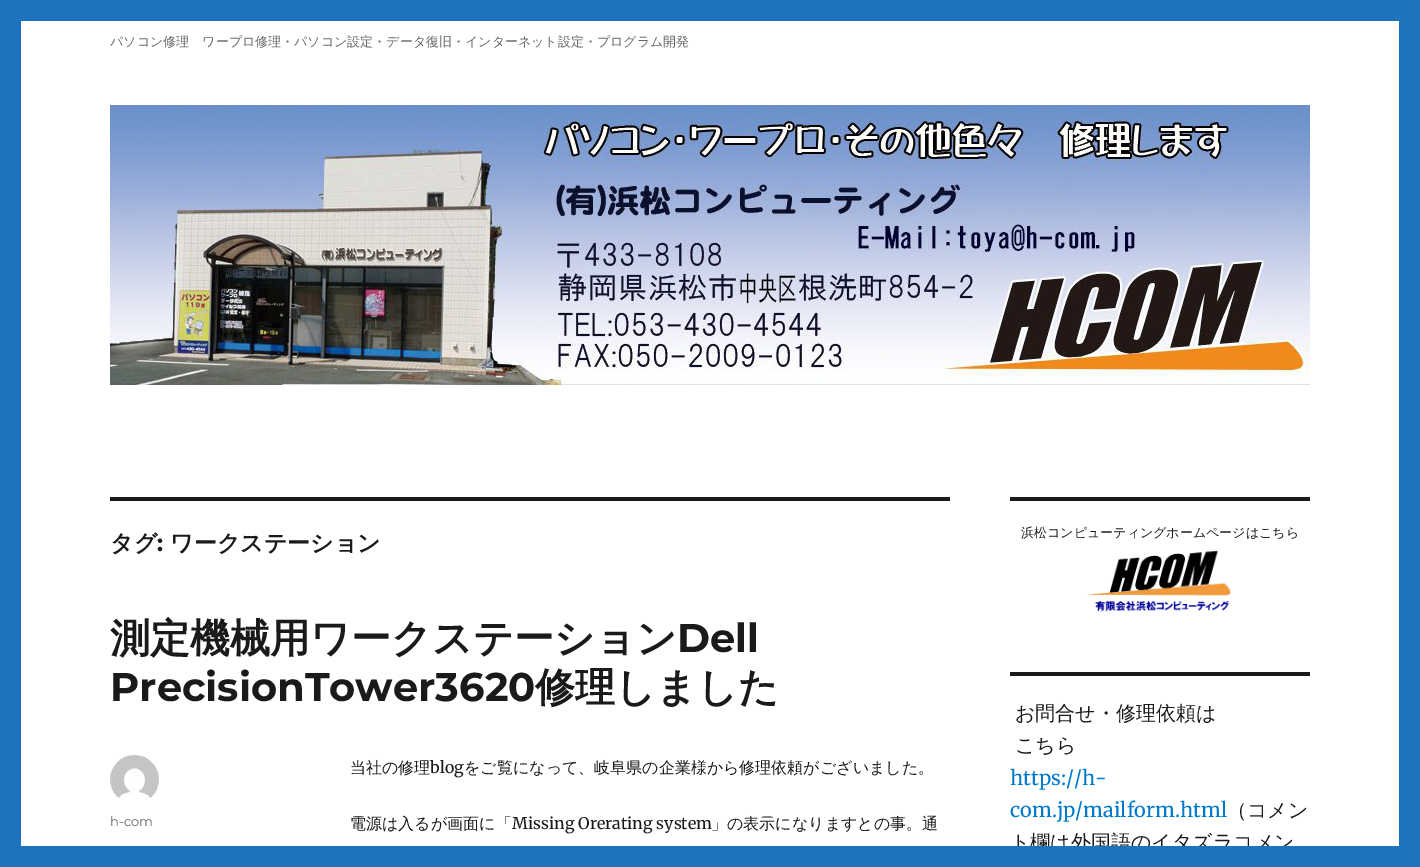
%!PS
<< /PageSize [1420 867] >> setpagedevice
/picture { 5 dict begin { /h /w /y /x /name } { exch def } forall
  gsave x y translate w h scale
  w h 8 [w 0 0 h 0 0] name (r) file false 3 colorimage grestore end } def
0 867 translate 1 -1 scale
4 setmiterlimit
0.118 0.451 0.745 setrgbcolor
0 0 1420 867 rectfill
1 setgray
21 21 1378 825 rectfill
/WenQuanYiZenHei-Medium [13 0 0 -13 0 0] selectfont
0.408 setgray
110 46 moveto (パソコン修理　ワープロ修理・パソコン設定・データ復旧・インターネット設定・プログラム開発) show
(img1.rgb) 110 105 1200 280 picture
0.102 setgray
110 497 840 4 rectfill
/WenQuanYiZenHei-Bold [23 0 0 -23 0 0] selectfont
110 551 moveto (タグ) show
/Montserrat-Bold [23 0 0 -23 0 0] selectfont
157 551 moveto (:) show
/WenQuanYiZenHei-Bold [23 0 0 -23 0 0] selectfont
170 551 moveto (ワークステーション) show
/WenQuanYiZenHei-Bold [40 0 0 -40 0 0] selectfont
110 652 moveto (測定機械用ワークステーション) show
/Montserrat-Bold [40 0 0 -40 0 0] selectfont
677 652 moveto (Dell) show
110 701 moveto (PrecisionTower3620) show
/WenQuanYiZenHei-Bold [40 0 0 -40 0 0] selectfont
535 701 moveto (修理しました) show
(img2.rgb) 110 755 49 45 picture
/Montserrat-Regular [13 0 0 -13 0 0] selectfont
0.408 setgray
110 826 moveto (h-com) show
/WenQuanYiZenHei-Medium [16 0 0 -16 0 0] selectfont
0.102 setgray
350 773 moveto (当社の修理) show
/Merriweather-Regular [16 0 0 -16 0 0] selectfont
430 773 moveto (blog) show
/WenQuanYiZenHei-Medium [16 0 0 -16 0 0] selectfont
464 773 moveto (をご覧になって、岐阜県の企業様から修理依頼がございました。) show
350 829 moveto (電源は入るが画面に「) show
/Merriweather-Regular [16 0 0 -16 0 0] selectfont
512 829 moveto (Missing Orerating system) show
/WenQuanYiZenHei-Medium [16 0 0 -16 0 0] selectfont
711 829 moveto (」の表示になりますとの事。通) show
1010 497 300 4 rectfill
/WenQuanYiZenHei-Medium [13 0 0 -13 0 0] selectfont
1021 537 moveto (浜松コンピューティングホームページはこちら) show
(img3.rgb) 1087 550 144 62 picture
1010 672 300 4 rectfill
/WenQuanYiZenHei-Medium [20 0 0 -20 0 0] selectfont
1015 720 moveto (お問合せ・修理依頼は) show
1015 752 moveto (こちら) show
/Merriweather-Regular [20 0 0 -20 0 0] selectfont
0 0.478 0.8 setrgbcolor
1010 785 moveto (https://h-) show
1010 817 moveto (com.jp/mailform.html) show
/WenQuanYiZenHei-Medium [20 0 0 -20 0 0] selectfont
0.102 setgray
1227 817 moveto (（コメン) show
1010 849 moveto (ト欄は外国語のイタズラコメン) show
0.118 0.451 0.745 setrgbcolor
1017 846 269 6 rectfill
showpage
